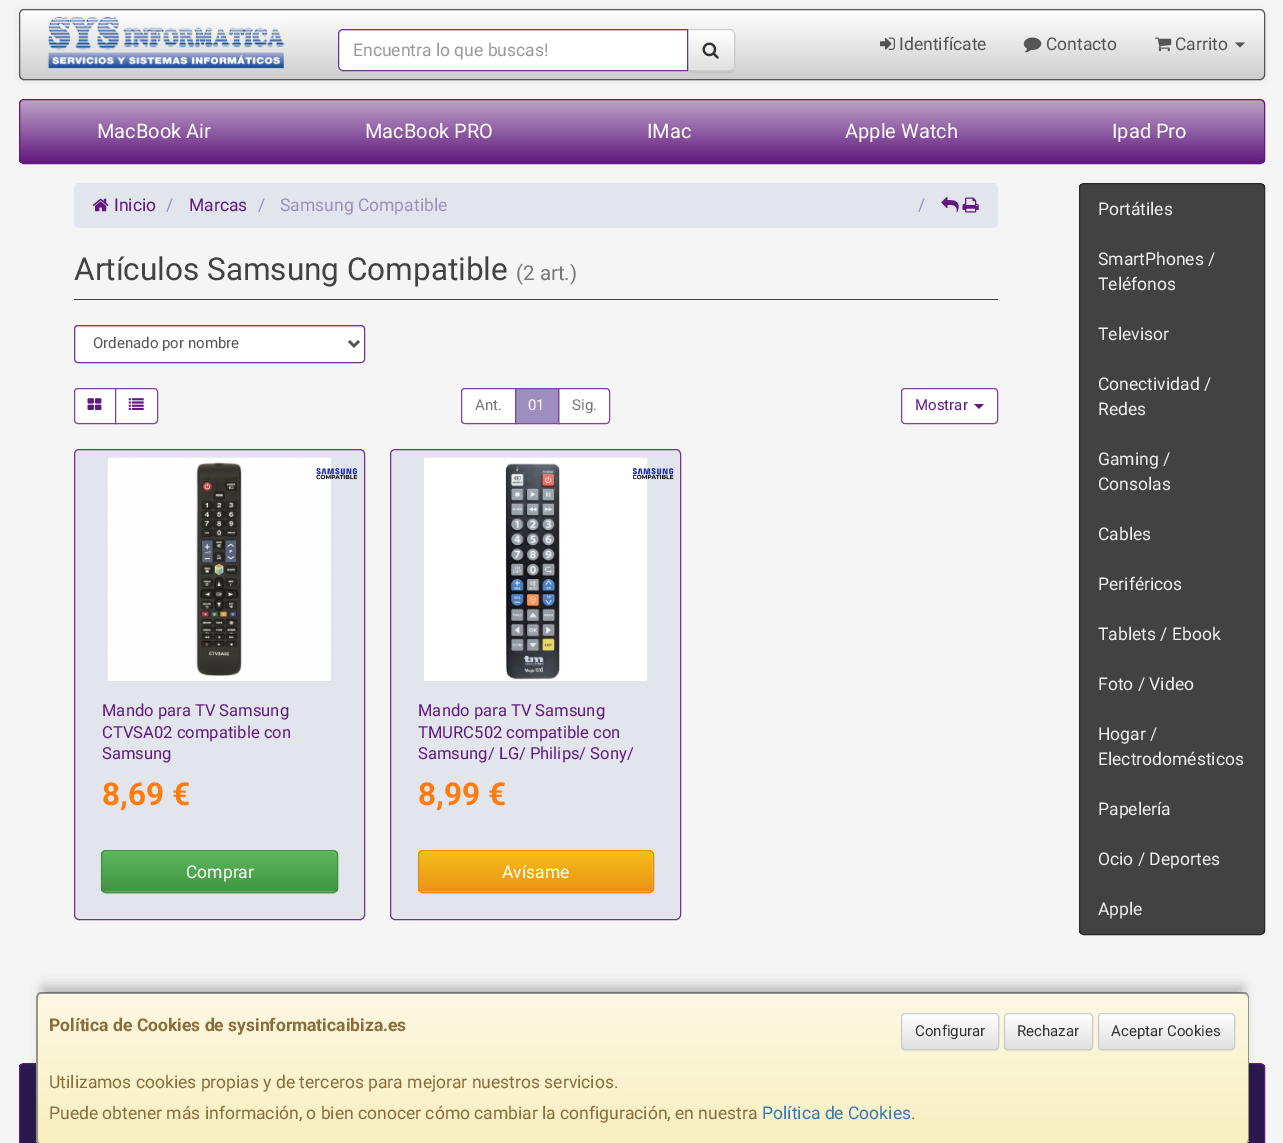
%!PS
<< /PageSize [1283 1143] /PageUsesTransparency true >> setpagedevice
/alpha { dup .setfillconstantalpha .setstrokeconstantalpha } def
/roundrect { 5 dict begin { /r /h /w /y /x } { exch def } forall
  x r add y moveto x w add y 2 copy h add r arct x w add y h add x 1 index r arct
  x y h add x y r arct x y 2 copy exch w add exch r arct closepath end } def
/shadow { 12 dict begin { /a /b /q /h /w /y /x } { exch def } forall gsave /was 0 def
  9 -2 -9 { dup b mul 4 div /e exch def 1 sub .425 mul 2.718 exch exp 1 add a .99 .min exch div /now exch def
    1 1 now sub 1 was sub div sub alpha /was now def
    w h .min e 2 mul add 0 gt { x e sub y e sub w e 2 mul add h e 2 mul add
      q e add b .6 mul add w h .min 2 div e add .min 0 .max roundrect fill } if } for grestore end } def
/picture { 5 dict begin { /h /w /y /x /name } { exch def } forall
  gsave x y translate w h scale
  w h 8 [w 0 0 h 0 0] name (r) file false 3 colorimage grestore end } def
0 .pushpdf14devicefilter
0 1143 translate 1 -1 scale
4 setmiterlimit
0.961 setgray
0 0 1283 1143 rectfill
0 setgray
19 10 1246 71 5 3 0.07 shadow
gsave
19 9 1246 71 5 roundrect clip newpath
gsave newpath 19 10 moveto 1265 10 lineto 1265 79 lineto 19 79 lineto closepath clip newpath
<< /ShadingType 2 /ColorSpace /DeviceRGB /Coords [642 10 642 79] /Extend [true true] /Function << /FunctionType 2 /Domain [0 1] /C0 [1 1 1] /C1 [0.808 0.808 0.808] /N 1 >> >> shfill grestore
grestore
0.333 setgray
19.5 9.5 1245 70 4.5 roundrect stroke
(img1.rgb) 47 16 238 53 picture
0 setgray
686 30 49 43 5 0.5 0.07 shadow
gsave
newpath 686 29 moveto 730 29 lineto 733 29 735 31 735 34 curveto 735 66 lineto 735 69 733 71 730 71 curveto 686 71 lineto closepath clip newpath
gsave newpath 688 30 moveto 735 30 lineto 735 70 lineto 688 70 lineto closepath clip newpath
<< /ShadingType 2 /ColorSpace /DeviceRGB /Coords [711 30 711 70] /Extend [true true] /Function << /FunctionType 2 /Domain [0 1] /C0 [1 1 1] /C1 [0.878 0.878 0.878] /N 1 >> >> shfill grestore
grestore
0.8 setgray
newpath 686.5 29.5 moveto 730 29.5 lineto 732.5 29.5 734.5 31.5 734.5 34 curveto 734.5 66 lineto 734.5 68.5 732.5 70.5 730 70.5 curveto 686.5 70.5 lineto closepath stroke
1 setgray
newpath 343 29 moveto 688 29 lineto 688 71 lineto 343 71 lineto 340 71 338 69 338 66 curveto 338 34 lineto 338 31 340 29 343 29 curveto closepath fill
0.925 setgray
newpath 342 31 moveto 686 31 lineto 686 30 lineto 343 30 lineto 340 30 339 32 339 35 curveto 339 33 340 31 342 31 curveto closepath fill
0.451 0.2 0.553 setrgbcolor
newpath 343 29.5 moveto 687.5 29.5 lineto 687.5 70.5 lineto 343 70.5 lineto 340.5 70.5 338.5 68.5 338.5 66 curveto 338.5 34 lineto 338.5 31.5 340.5 29.5 343 29.5 curveto closepath stroke
/Roboto-Regular [17.5 0 0 -17.5 0 0] selectfont
0.6 setgray
353 56 moveto (Encuentra lo que buscas!) show
(img2.rgb) 702 42 17 17 picture
(img3.rgb) 880 37 15 13 picture
0.333 setgray
899 50 moveto (Identifícate) show
(img4.rgb) 1023 37 19 16 picture
1046 50 moveto (Contacto) show
(img5.rgb) 1155 37 17 15 picture
1175 50 moveto (Carrito) show
newpath 1235 42.5 moveto 1245 42.5 lineto 1240 47.5 lineto closepath fill
gsave
19 99 1246 65 5 roundrect clip newpath
gsave newpath 19 100 moveto 1265 100 lineto 1265 163 lineto 19 163 lineto closepath clip newpath
<< /ShadingType 2 /ColorSpace /DeviceRGB /Coords [642 100 642 163] /Extend [true true] /Function << /FunctionType 2 /Domain [0 1] /C0 [0.741 0.631 0.78] /C1 [0.38 0.098 0.498] /N 1 >> >> shfill grestore
grestore
0.38 0.098 0.498 setrgbcolor
19.5 99.5 1245 64 4.5 roundrect stroke
/Roboto-Regular [20 0 0 -20 0 0] selectfont
1 setgray
97 138 moveto (MacBook Air) show
365 138 moveto (MacBook PRO) show
647 138 moveto (IMac) show
845 138 moveto (Apple Watch) show
1112 138 moveto (Ipad Pro) show
0.886 0.898 0.925 setrgbcolor
74 183 924 45 5 roundrect fill
(img6.rgb) 92 198 17 14 picture
/Roboto-Regular [17.5 0 0 -17.5 0 0] selectfont
0.38 0.098 0.498 setrgbcolor
114 211 moveto (Inicio) show
0.62 0.557 0.749 setrgbcolor
166 211 moveto (/) show
0.38 0.098 0.498 setrgbcolor
189 211 moveto (Marcas) show
0.62 0.557 0.749 setrgbcolor
258 211 moveto (/) show
280 211 moveto (Samsung Compatible) show
918 211 moveto (/) show
(img7.rgb) 941 196 18 17 picture
(img8.rgb) 962 197 17 16 picture
0.259 setgray
74 299 924 1 rectfill
/Roboto-Regular [31.5 0 0 -31.5 0 0] selectfont
74 280 moveto (Artículos Samsung Compatible) show
/Roboto-Regular [20.5 0 0 -20.5 0 0] selectfont
0.467 setgray
516 280 moveto (\(2 art.\)) show
1 setgray
74 325 291 38 4 roundrect fill
0.925 setgray
newpath 78 328 moveto 361 328 lineto 363 328 364 329 364 330 curveto 364 328 364 326 362 326 curveto 78 326 lineto 75 326 75 328 75 330 curveto 75 329 76 328 78 328 curveto closepath fill
0.451 0.2 0.553 setrgbcolor
74.5 325.5 290 37 3.5 roundrect stroke
0.333 setgray
2.5 setlinewidth
newpath 349 341 moveto 354 346 lineto 359 341 lineto stroke
/Roboto-Regular [15 0 0 -15 0 0] selectfont
93 348 moveto (Ordenado por nombre) show
1 setgray
newpath 78 388.5 moveto 115.5 388.5 lineto 115.5 423.5 lineto 78 423.5 lineto 76 423.5 74.5 422 74.5 420 curveto 74.5 392 lineto 74.5 390 76 388.5 78 388.5 curveto closepath gsave fill grestore
0.498 0.275 0.592 setrgbcolor
1 setlinewidth
stroke
(img9.rgb) 87 398 15 12 picture
1 setgray
newpath 115.5 388.5 moveto 154 388.5 lineto 156 388.5 157.5 390 157.5 392 curveto 157.5 420 lineto 157.5 422 156 423.5 154 423.5 curveto 115.5 423.5 lineto closepath gsave fill grestore
0.498 0.275 0.592 setrgbcolor
stroke
(img10.rgb) 128 398 16 12 picture
1 setgray
newpath 465 388.5 moveto 515.5 388.5 lineto 515.5 423.5 lineto 465 423.5 lineto 463 423.5 461.5 422 461.5 420 curveto 461.5 392 lineto 461.5 390 463 388.5 465 388.5 curveto closepath gsave fill grestore
0.498 0.275 0.592 setrgbcolor
stroke
0.467 setgray
475 410 moveto (Ant.) show
1 setgray
newpath 558.5 388.5 moveto 606 388.5 lineto 608 388.5 609.5 390 609.5 392 curveto 609.5 420 lineto 609.5 422 608 423.5 606 423.5 curveto 558.5 423.5 lineto closepath gsave fill grestore
0.498 0.275 0.592 setrgbcolor
stroke
0.62 0.557 0.749 setrgbcolor
newpath 515.5 388.5 moveto 558.5 388.5 lineto 558.5 423.5 lineto 515.5 423.5 lineto closepath gsave fill grestore
0.498 0.275 0.592 setrgbcolor
stroke
1 setgray
528 410 moveto (01) show
0.467 setgray
572 410 moveto (Sig.) show
1 setgray
901.5 388.5 96 35 3.5 roundrect gsave fill grestore
0.498 0.275 0.592 setrgbcolor
stroke
0.38 0.098 0.498 setrgbcolor
915 410 moveto (Mostrar) show
newpath 974 404 moveto 984 404 lineto 979 409 lineto closepath fill
0.886 0.898 0.925 setrgbcolor
74.5 449.5 290 470 4.5 roundrect gsave fill grestore
0.451 0.2 0.553 setrgbcolor
stroke
(img11.rgb) 107 457 224 224 picture
(img12.rgb) 316 468 42 12 picture
/Roboto-Regular [16.6 0 0 -16.6 0 0] selectfont
0.38 0.098 0.498 setrgbcolor
102 716 moveto (Mando para TV Samsung) show
102 738 moveto (CTVSA02 compatible con) show
102 759 moveto (Samsung) show
/Roboto-Bold [31.5 0 0 -31.5 0 0] selectfont
1 0.482 0.051 setrgbcolor
102 805 moveto (8,69 €) show
0 setgray
101 851 237 43 5 0.5 0.07 shadow
0.361 0.722 0.361 setrgbcolor
101 850 237 43 5 roundrect fill
gsave
101 850 237 43 5 roundrect clip newpath
gsave newpath 101 851 moveto 338 851 lineto 338 891 lineto 101 891 lineto closepath clip newpath
<< /ShadingType 2 /ColorSpace /DeviceRGB /Coords [219 851 219 891] /Extend [true true] /Function << /FunctionType 2 /Domain [0 1] /C0 [0.361 0.722 0.361] /C1 [0.255 0.588 0.255] /N 1 >> >> shfill grestore
grestore
0.455 0.765 0.455 setrgbcolor
newpath 106 852 moveto 332 852 lineto 335 852 336 854 336 856 curveto 336 853 335 851 332 851 curveto 107 851 lineto 105 852 lineto 104 853 lineto closepath fill
0.243 0.561 0.243 setrgbcolor
101.5 850.5 236 42 4.5 roundrect stroke
/Roboto-Regular [17.5 0 0 -17.5 0 0] selectfont
1 setgray
186 878 moveto (Comprar) show
0.886 0.898 0.925 setrgbcolor
390.5 449.5 290 470 4.5 roundrect gsave fill grestore
0.451 0.2 0.553 setrgbcolor
stroke
(img13.rgb) 424 457 224 224 picture
(img14.rgb) 633 468 41 12 picture
/Roboto-Regular [16.6 0 0 -16.6 0 0] selectfont
0.38 0.098 0.498 setrgbcolor
418 716 moveto (Mando para TV Samsung) show
418 738 moveto (TMURC502 compatible con) show
418 759 moveto (Samsung/ LG/ Philips/ Sony/) show
/Roboto-Bold [31.5 0 0 -31.5 0 0] selectfont
1 0.482 0.051 setrgbcolor
418 805 moveto (8,99 €) show
0 setgray
418 851 236 43 5 0.5 0.07 shadow
0.941 0.678 0.306 setrgbcolor
418 850 236 43 5 roundrect fill
gsave
418 850 236 43 5 roundrect clip newpath
gsave newpath 418 851 moveto 654 851 lineto 654 891 lineto 418 891 lineto closepath clip newpath
<< /ShadingType 2 /ColorSpace /DeviceRGB /Coords [536 851 536 891] /Extend [true true] /Function << /FunctionType 2 /Domain [0 1] /C0 [0.969 0.745 0.098] /C1 [0.922 0.576 0.086] /N 1 >> >> shfill grestore
grestore
0.15 alpha
1 setgray
newpath 422 852 moveto 649 852 lineto 651 852 652 854 652 856 curveto 652 890 lineto 653 889 653 888 653 887 curveto 653 855 lineto 653 853 651 851 649 851 curveto 423 851 lineto 421 851 419 853 419 855 curveto 419 856 lineto 419 854 420 852 422 852 curveto closepath fill
1 alpha
0.89 0.553 0.075 setrgbcolor
418.5 850.5 235 42 4.5 roundrect stroke
/Roboto-Regular [17.5 0 0 -17.5 0 0] selectfont
1 setgray
502 878 moveto (Avísame) show
gsave
1079 183 186 752 5 roundrect clip newpath
0.259 setgray
1079 184 186 750 rectfill
grestore
0.157 setgray
1079.5 183.5 185 751 4.5 roundrect stroke
0.937 setgray
1098 215 moveto (Portátiles) show
1098 265 moveto (SmartPhones /) show
1098 290 moveto (Teléfonos) show
1098 340 moveto (Televisor) show
1098 390 moveto (Conectividad /) show
1098 415 moveto (Redes) show
1098 465 moveto (Gaming /) show
1098 490 moveto (Consolas) show
1098 540 moveto (Cables) show
1098 590 moveto (Periféricos) show
1098 640 moveto (Tablets / Ebook) show
1098 690 moveto (Foto / Video) show
1098 740 moveto (Hogar /) show
1098 765 moveto (Electrodomésticos) show
1098 815 moveto (Papelería) show
1098 865 moveto (Ocio / Deportes) show
1098 915 moveto (Apple) show
gsave
19 1063 1246 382 5 roundrect clip newpath
0.165 0.098 0.31 setrgbcolor
19 1064 1246 79 rectfill
grestore
0.38 0.098 0.498 setrgbcolor
19.5 1063.5 1245 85 4.5 roundrect stroke
0 setgray
43 986 1200 139 0 6 0.25 shadow
0.988 0.973 0.89 setrgbcolor
36 993 1213 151 5 roundrect fill
gsave
36 993 1213 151 5 roundrect clip newpath
gsave newpath 36 994 moveto 1249 994 lineto 1249 1139 lineto 1249 1142 1247 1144 1244 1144 curveto 41 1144 lineto 38 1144 36 1142 36 1139 curveto closepath clip newpath
<< /ShadingType 2 /ColorSpace /DeviceRGB /Coords [643 994 643 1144] /Extend [true true] /Function << /FunctionType 2 /Domain [0 1] /C0 [0.988 0.973 0.89] /C1 [0.973 0.937 0.753] /N 1 >> >> shfill grestore
grestore
0.4 alpha
0 setgray
newpath 41 992 moveto 1244 992 lineto 1247 992 1249 995 1249 998 curveto 1249 1139 lineto 1249 1142 1247 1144 1244 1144 curveto 41 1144 lineto 38 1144 36 1142 36 1139 curveto 36 998 lineto 36 995 38 992 41 992 curveto closepath 41 994 moveto 1244 994 lineto 1246 994 1248 995 1248 998 curveto 1248 1139 lineto 1248 1142 1246 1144 1244 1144 curveto 41 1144 lineto 39 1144 38 1142 38 1139 curveto 38 998 lineto 38 995 39 994 41 994 curveto closepath eofill
/Roboto-Bold [17.5 0 0 -17.5 0 0] selectfont
1 alpha
0.541 0.427 0.231 setrgbcolor
49 1031 moveto (Política de Cookies de sysinformaticaibiza.es) show
0 setgray
901 1014 98 37 4 0.5 0.07 shadow
gsave
901 1013 98 37 4 roundrect clip newpath
gsave newpath 901 1014 moveto 999 1014 lineto 999 1049 lineto 901 1049 lineto closepath clip newpath
<< /ShadingType 2 /ColorSpace /DeviceRGB /Coords [950 1014 950 1049] /Extend [true true] /Function << /FunctionType 2 /Domain [0 1] /C0 [1 1 1] /C1 [0.878 0.878 0.878] /N 1 >> >> shfill grestore
grestore
0.8 setgray
901.5 1013.5 97 36 3.5 roundrect stroke
/Roboto-Regular [15 0 0 -15 0 0] selectfont
0.2 setgray
915 1036 moveto (Configurar) show
0 setgray
1004 1014 89 37 4 0.5 0.07 shadow
gsave
1004 1013 89 37 4 roundrect clip newpath
gsave newpath 1004 1014 moveto 1093 1014 lineto 1093 1049 lineto 1004 1049 lineto closepath clip newpath
<< /ShadingType 2 /ColorSpace /DeviceRGB /Coords [1048 1014 1048 1049] /Extend [true true] /Function << /FunctionType 2 /Domain [0 1] /C0 [1 1 1] /C1 [0.878 0.878 0.878] /N 1 >> >> shfill grestore
grestore
0.8 setgray
1004.5 1013.5 88 36 3.5 roundrect stroke
0.2 setgray
1017 1036 moveto (Rechazar) show
0 setgray
1098 1014 137 37 4 0.5 0.07 shadow
gsave
1098 1013 137 37 4 roundrect clip newpath
gsave newpath 1098 1014 moveto 1235 1014 lineto 1235 1049 lineto 1098 1049 lineto closepath clip newpath
<< /ShadingType 2 /ColorSpace /DeviceRGB /Coords [1166 1014 1166 1049] /Extend [true true] /Function << /FunctionType 2 /Domain [0 1] /C0 [1 1 1] /C1 [0.878 0.878 0.878] /N 1 >> >> shfill grestore
grestore
0.8 setgray
1098.5 1013.5 136 36 3.5 roundrect stroke
0.2 setgray
1111 1036 moveto (Aceptar Cookies) show
/Roboto-Regular [17.5 0 0 -17.5 0 0] selectfont
0.541 0.427 0.231 setrgbcolor
49 1088 moveto (Utilizamos cookies propias y de terceros para mejorar nuestros servicios.) show
49 1119 moveto (Puede obtener más información, o bien conocer cómo cambiar la configuración, en nuestra) show
0.2 0.478 0.718 setrgbcolor
762 1119 moveto (Política de Cookies) show
0.541 0.427 0.231 setrgbcolor
911 1119 moveto (.) show
.poppdf14devicefilter showpage
